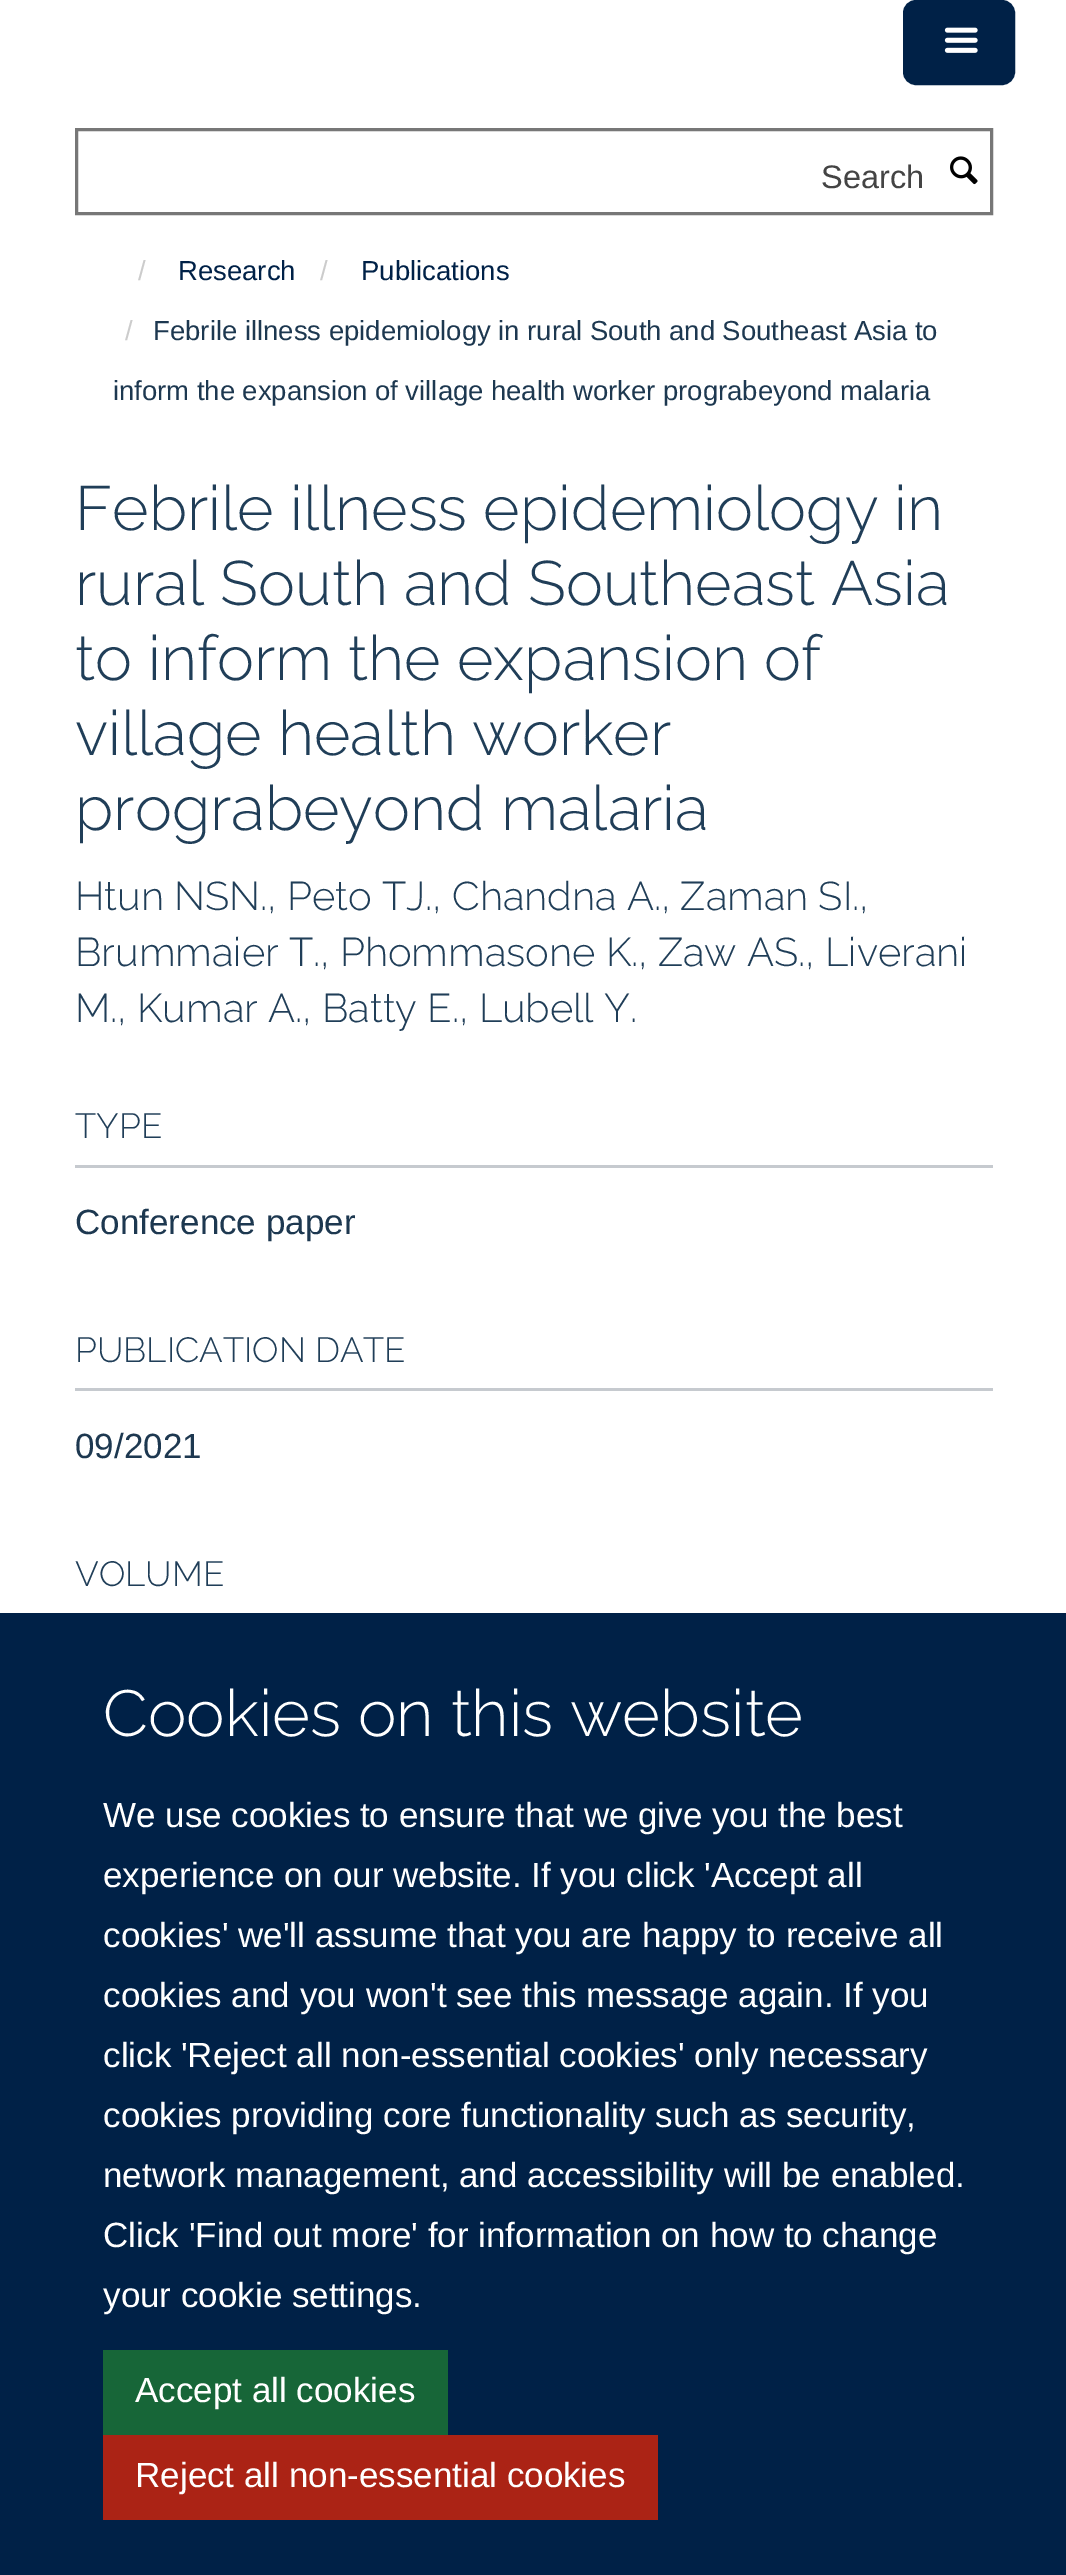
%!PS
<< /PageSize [1066 2575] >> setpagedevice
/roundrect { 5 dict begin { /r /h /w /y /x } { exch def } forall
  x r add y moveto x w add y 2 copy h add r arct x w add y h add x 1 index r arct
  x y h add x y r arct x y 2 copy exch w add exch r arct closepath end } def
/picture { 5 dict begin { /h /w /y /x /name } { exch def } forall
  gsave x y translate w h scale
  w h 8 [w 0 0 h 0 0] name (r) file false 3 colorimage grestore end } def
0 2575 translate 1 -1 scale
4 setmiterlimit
1 setgray
0 0 1066 2575 rectfill
0 0.129 0.278 setrgbcolor
904.5 1.5 109 82 11.5 roundrect gsave fill grestore
3 setlinewidth
stroke
(img1.rgb) 944 27 34 26 picture
0.467 setgray
76.5 129.5 915 84 rectstroke
/LiberationSans-Regular [32.5 0 0 -32.5 0 0] selectfont
0.267 setgray
821 188 moveto (Search) show
(img2.rgb) 950 156 28 29 picture
/LiberationSans-Regular [27.5 0 0 -27.5 0 0] selectfont
0.8 setgray
138 280 moveto (/) show
0 0.129 0.278 setrgbcolor
178 280 moveto (Research) show
0.8 setgray
320 280 moveto (/) show
0 0.129 0.278 setrgbcolor
361 280 moveto (Publications) show
0.8 setgray
125 340 moveto (/) show
0.114 0.22 0.314 setrgbcolor
153 340 moveto -0.1 0 32 (Febrile illness epidemiology in rural South and Southeast Asia to) widthshow
113 400 moveto -0.25 0 32 (inform the expansion of village health worker prograbeyond malaria) widthshow
/Raleway-Light [62.5 0 0 -62.5 0 0] selectfont
0.125 0.243 0.345 setrgbcolor
75 530 moveto (Febrile illness epidemiology in) show
75 605 moveto (rural South and Southeast Asia) show
75 680 moveto (to inform the expansion of) show
75 755 moveto (village health worker) show
75 830 moveto (prograbeyond malaria) show
/Raleway-Light [40 0 0 -40 0 0] selectfont
75 910 moveto (Htun NSN., Peto TJ., Chandna A., Zaman SI.,) show
75 966 moveto (Brummaier T., Phommasone K., Zaw AS., Liverani) show
75 1022 moveto (M., Kumar A., Batty E., Lubell Y.) show
0.776 0.792 0.812 setrgbcolor
75 1165 918 3 rectfill
/Raleway-Light [35 0 0 -35 0 0] selectfont
0.125 0.243 0.345 setrgbcolor
75 1138 moveto (TYPE) show
/LiberationSans-Regular [35 0 0 -35 0 0] selectfont
0.114 0.22 0.314 setrgbcolor
75 1234 moveto (Conference paper) show
0.776 0.792 0.812 setrgbcolor
75 1388 918 3 rectfill
/Raleway-Light [35 0 0 -35 0 0] selectfont
0.125 0.243 0.345 setrgbcolor
75 1362 moveto (PUBLICATION DATE) show
/LiberationSans-Regular [35 0 0 -35 0 0] selectfont
0.114 0.22 0.314 setrgbcolor
75 1458 moveto (09/2021) show
/Raleway-Light [35 0 0 -35 0 0] selectfont
0.125 0.243 0.345 setrgbcolor
75 1586 moveto (VOLUME) show
0 0.129 0.278 setrgbcolor
0 1613 1066 962 rectfill
/Raleway-Light [65 0 0 -65 0 0] selectfont
1 setgray
103 1736 moveto (Cookies on this website) show
/LiberationSans-Regular [35 0 0 -35 0 0] selectfont
103 1827 moveto (We use cookies to ensure that we give you the best) show
103 1887 moveto (experience on our website. If you click 'Accept all) show
103 1947 moveto (cookies' we'll assume that you are happy to receive all) show
103 2007 moveto (cookies and you won't see this message again. If you) show
103 2067 moveto (click 'Reject all non-essential cookies' only necessary) show
103 2127 moveto (cookies providing core functionality such as security,) show
103 2187 moveto (network management, and accessibility will be enabled.) show
103 2247 moveto (Click 'Find out more' for information on how to change) show
103 2307 moveto (your cookie settings.) show
0.09 0.4 0.22 setrgbcolor
103 2350 345 85 rectfill
1 setgray
135 2402 moveto (Accept all cookies) show
0.671 0.137 0.082 setrgbcolor
103 2435 555 85 rectfill
1 setgray
135 2487 moveto (Reject all non-essential cookies) show
showpage
